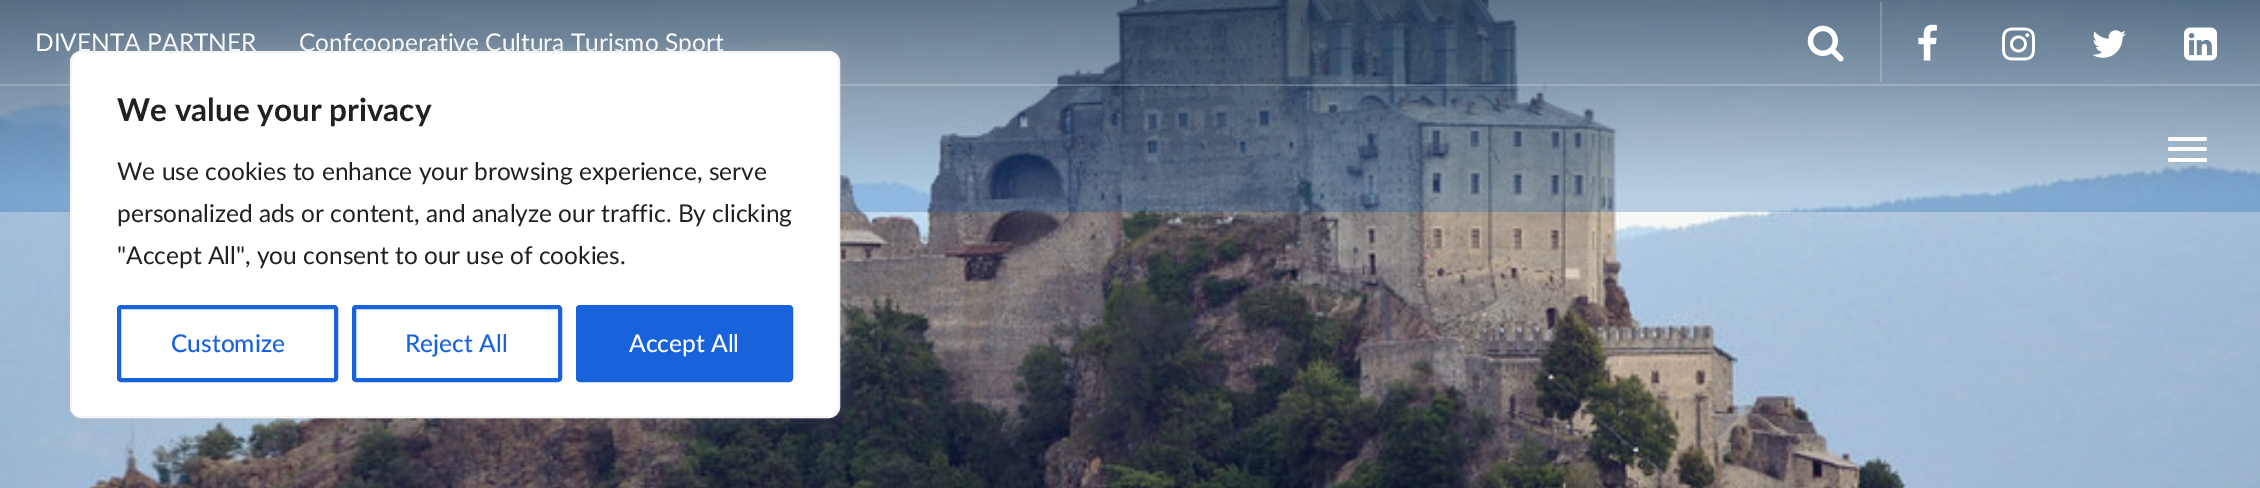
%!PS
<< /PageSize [2260 488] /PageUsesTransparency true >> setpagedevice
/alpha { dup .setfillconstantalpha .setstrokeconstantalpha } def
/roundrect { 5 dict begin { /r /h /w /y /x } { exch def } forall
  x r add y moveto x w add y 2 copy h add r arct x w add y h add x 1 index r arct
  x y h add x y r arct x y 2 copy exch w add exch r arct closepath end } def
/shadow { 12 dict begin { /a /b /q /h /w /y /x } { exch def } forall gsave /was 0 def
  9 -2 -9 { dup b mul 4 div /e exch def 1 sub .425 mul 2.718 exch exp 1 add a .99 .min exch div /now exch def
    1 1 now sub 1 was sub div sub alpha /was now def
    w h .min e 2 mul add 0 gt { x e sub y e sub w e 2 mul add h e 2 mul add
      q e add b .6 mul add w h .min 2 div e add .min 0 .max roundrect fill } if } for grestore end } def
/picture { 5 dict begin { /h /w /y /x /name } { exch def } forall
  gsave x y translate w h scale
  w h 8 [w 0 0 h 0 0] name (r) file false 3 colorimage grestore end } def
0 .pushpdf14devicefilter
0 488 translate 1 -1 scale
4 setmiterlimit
1 setgray
0 0 2260 488 rectfill
(img1.rgb) 0 0 2260 488 picture
0.26 alpha
0.012 0.341 0.671 setrgbcolor
0 0 2260 212 rectfill
0.2 alpha
1 setgray
0 84 2260 2 rectfill
/Lato-Regular [24.5 0 0 -24.5 0 0] selectfont
1 alpha
35 51 moveto (DIVENTA PARTNER) show
299 51 moveto (Confcooperative Cultura Turismo Sport) show
0.2 alpha
1880 2 2 80 rectfill
1 alpha
(img2.rgb) 1807 25 37 37 picture
(img3.rgb) 1918 24 19 37 picture
(img4.rgb) 2002 27 33 34 picture
(img5.rgb) 2092 30 34 28 picture
(img6.rgb) 2184 27 33 34 picture
2168 137 39 4 2 roundrect fill
2168 147 39 4 2 roundrect fill
2168 158 39 4 2 roundrect fill
0.675 0.671 0.671 setrgbcolor
70 49 770 368 11 9 0.3 shadow
1 setgray
71 52 768 365 10 roundrect gsave fill grestore
0.957 setgray
2 setlinewidth
stroke
/Lato-Bold [31.5 0 0 -31.5 0 0] selectfont
0.129 setgray
117 121 moveto (We value your privacy) show
/Lato-Regular [24.5 0 0 -24.5 0 0] selectfont
117 180 moveto (We use cookies to enhance your browsing experience, serve) show
117 222 moveto (personalized ads or content, and analyze our traffic. By clicking) show
117 264 moveto ("Accept All", you consent to our use of cookies.) show
0.094 0.388 0.863 setrgbcolor
4 setlinewidth
119 307 217 73 2 roundrect stroke
/Lato-Medium [24.5 0 0 -24.5 0 0] selectfont
171 352 moveto (Customize) show
354 307 206 73 2 roundrect stroke
405 352 moveto (Reject All) show
578 307 213 73 2 roundrect gsave fill grestore
stroke
1 setgray
629 352 moveto (Accept All) show
.poppdf14devicefilter showpage
